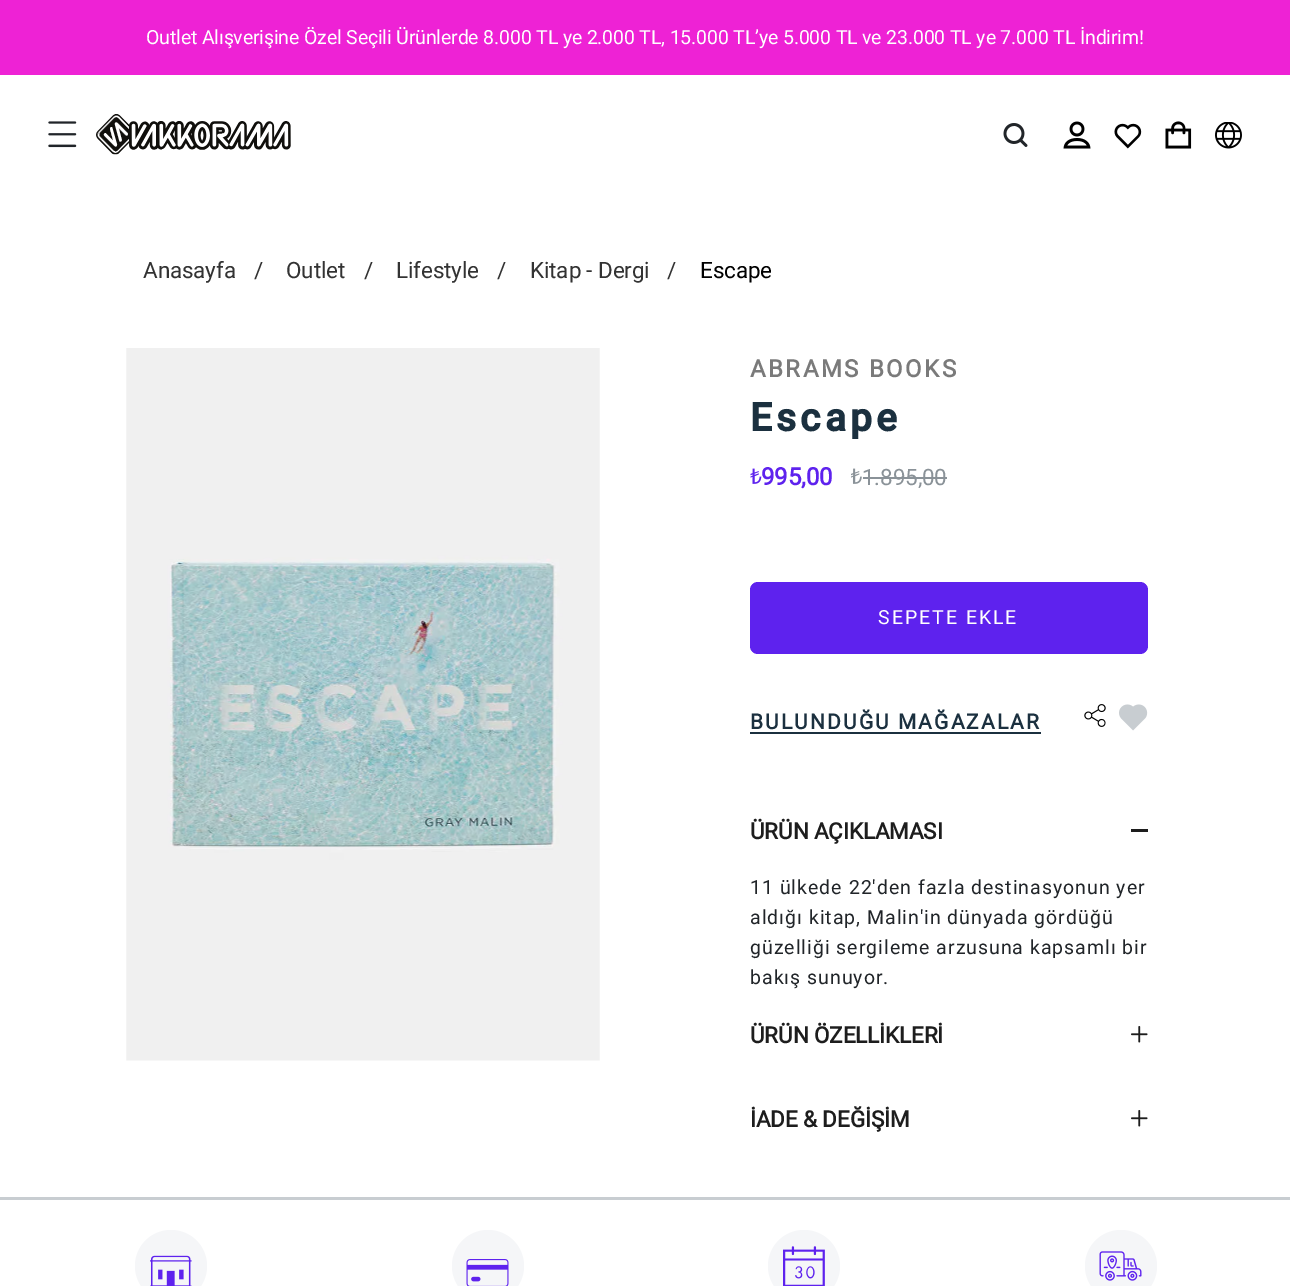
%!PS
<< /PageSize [1290 1286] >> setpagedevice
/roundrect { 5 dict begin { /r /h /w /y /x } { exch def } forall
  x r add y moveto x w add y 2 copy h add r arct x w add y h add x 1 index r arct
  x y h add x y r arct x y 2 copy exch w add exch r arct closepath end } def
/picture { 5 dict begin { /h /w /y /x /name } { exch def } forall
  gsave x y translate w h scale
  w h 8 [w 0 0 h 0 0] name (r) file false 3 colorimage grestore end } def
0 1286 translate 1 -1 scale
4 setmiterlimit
1 setgray
0 0 1290 1286 rectfill
0.933 0.133 0.835 setrgbcolor
0 0 1290 75 rectfill
/Roboto-Regular [19.5 0 0 -19.5 0 0] selectfont
1 setgray
146 44 moveto -0.15 0 (Outlet Alışverişine Özel Seçili Ürünlerde 8.000 TL ye 2.000 TL, 15.000 TL’ye 5.000 TL ve 23.000 TL ye 7.000 TL İndirim!) ashow
(img1.rgb) 48 121 29 27 picture
(img2.rgb) 96 114 195 41 picture
(img3.rgb) 1003 123 25 24 picture
(img4.rgb) 1063 121 28 28 picture
(img5.rgb) 1114 123 28 26 picture
(img6.rgb) 1165 121 27 28 picture
(img7.rgb) 1215 122 27 27 picture
/Roboto-Regular [22.5 0 0 -22.5 0 0] selectfont
0.2 setgray
143 278 moveto -0.15 0 (Anasayfa) ashow
254 278 moveto -0.15 0 (/) ashow
286 278 moveto -0.15 0 (Outlet) ashow
364 278 moveto -0.15 0 (/) ashow
396 278 moveto -0.15 0 (Lifestyle) ashow
497 278 moveto -0.15 0 (/) ashow
530 278 moveto -0.15 0 (Kitap - Dergi) ashow
667 278 moveto -0.15 0 (/) ashow
0 setgray
700 278 moveto -0.15 0 (Escape) ashow
(img8.rgb) 126 348 474 713 picture
/Roboto-Bold [24 0 0 -24 0 0] selectfont
0.478 setgray
750 377 moveto 2.4 0 (ABRAMS BOOKS) ashow
/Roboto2-Bold [39 0 0 -39 0 0] selectfont
0.106 0.188 0.247 setrgbcolor
750 431 moveto 4 0 (Escape) ashow
(img9.rgb) 750 468 12 16 picture
/Roboto-Bold [24 0 0 -24 0 0] selectfont
0.369 0.133 0.933 setrgbcolor
761 485 moveto -0.15 0 (995,00) ashow
(img10.rgb) 851 468 11 16 picture
/Roboto-Regular [22.5 0 0 -22.5 0 0] selectfont
0.541 0.573 0.596 setrgbcolor
862 485 moveto -0.15 0 (1.895,00) ashow
863 477 84 2 rectfill
0.369 0.133 0.933 setrgbcolor
750 582 398 72 8 roundrect fill
/Roboto-Regular [19.5 0 0 -19.5 0 0] selectfont
1 setgray
878 624 moveto 2 0 (SEPETE EKLE) ashow
/Roboto-Bold [21 0 0 -21 0 0] selectfont
0.106 0.188 0.247 setrgbcolor
750 729 moveto 2.1 0 (BULUNDUĞU MAĞAZALAR) ashow
750 732 291 2 rectfill
(img11.rgb) 1084 704 22 23 picture
(img12.rgb) 1119 704 29 27 picture
/Roboto-Bold [22.5 0 0 -22.5 0 0] selectfont
0.114 setgray
750 839 moveto -0.15 0 (ÜRÜN AÇIKLAMASI) ashow
1131 829 17 3 rectfill
/Roboto-Regular [19.5 0 0 -19.5 0 0] selectfont
0.129 0.145 0.161 setrgbcolor
750 894 moveto 1 0 (11 ülkede 22'den fazla destinasyonun yer) ashow
750 924 moveto 1 0 (aldığı kitap, Malin'in dünyada gördüğü) ashow
750 954 moveto 1 0 (güzelliği sergileme arzusuna kapsamlı bir) ashow
750 984 moveto 1 0 (bakış sunuyor.) ashow
/Roboto-Bold [22.5 0 0 -22.5 0 0] selectfont
0.114 setgray
750 1043 moveto -0.15 0 (ÜRÜN ÖZELLİKLERİ) ashow
(img13.rgb) 1131 1026 17 17 picture
750 1127 moveto -0.15 0 (İADE & DEĞİŞİM) ashow
(img13.rgb) 1131 1110 17 17 picture
0.784 0.804 0.82 setrgbcolor
0 1197 1290 3 rectfill
0.961 0.965 0.973 setrgbcolor
newpath 171 1266 36 0 360 arc closepath fill
(img14.rgb) 150 1255 42 31 picture
newpath 488 1266 36 0 360 arc closepath fill
(img15.rgb) 466 1259 43 27 picture
newpath 804 1266 36 0 360 arc closepath fill
(img16.rgb) 783 1246 42 40 picture
newpath 1121 1266 36 0 360 arc closepath fill
(img17.rgb) 1099 1251 43 30 picture
showpage
